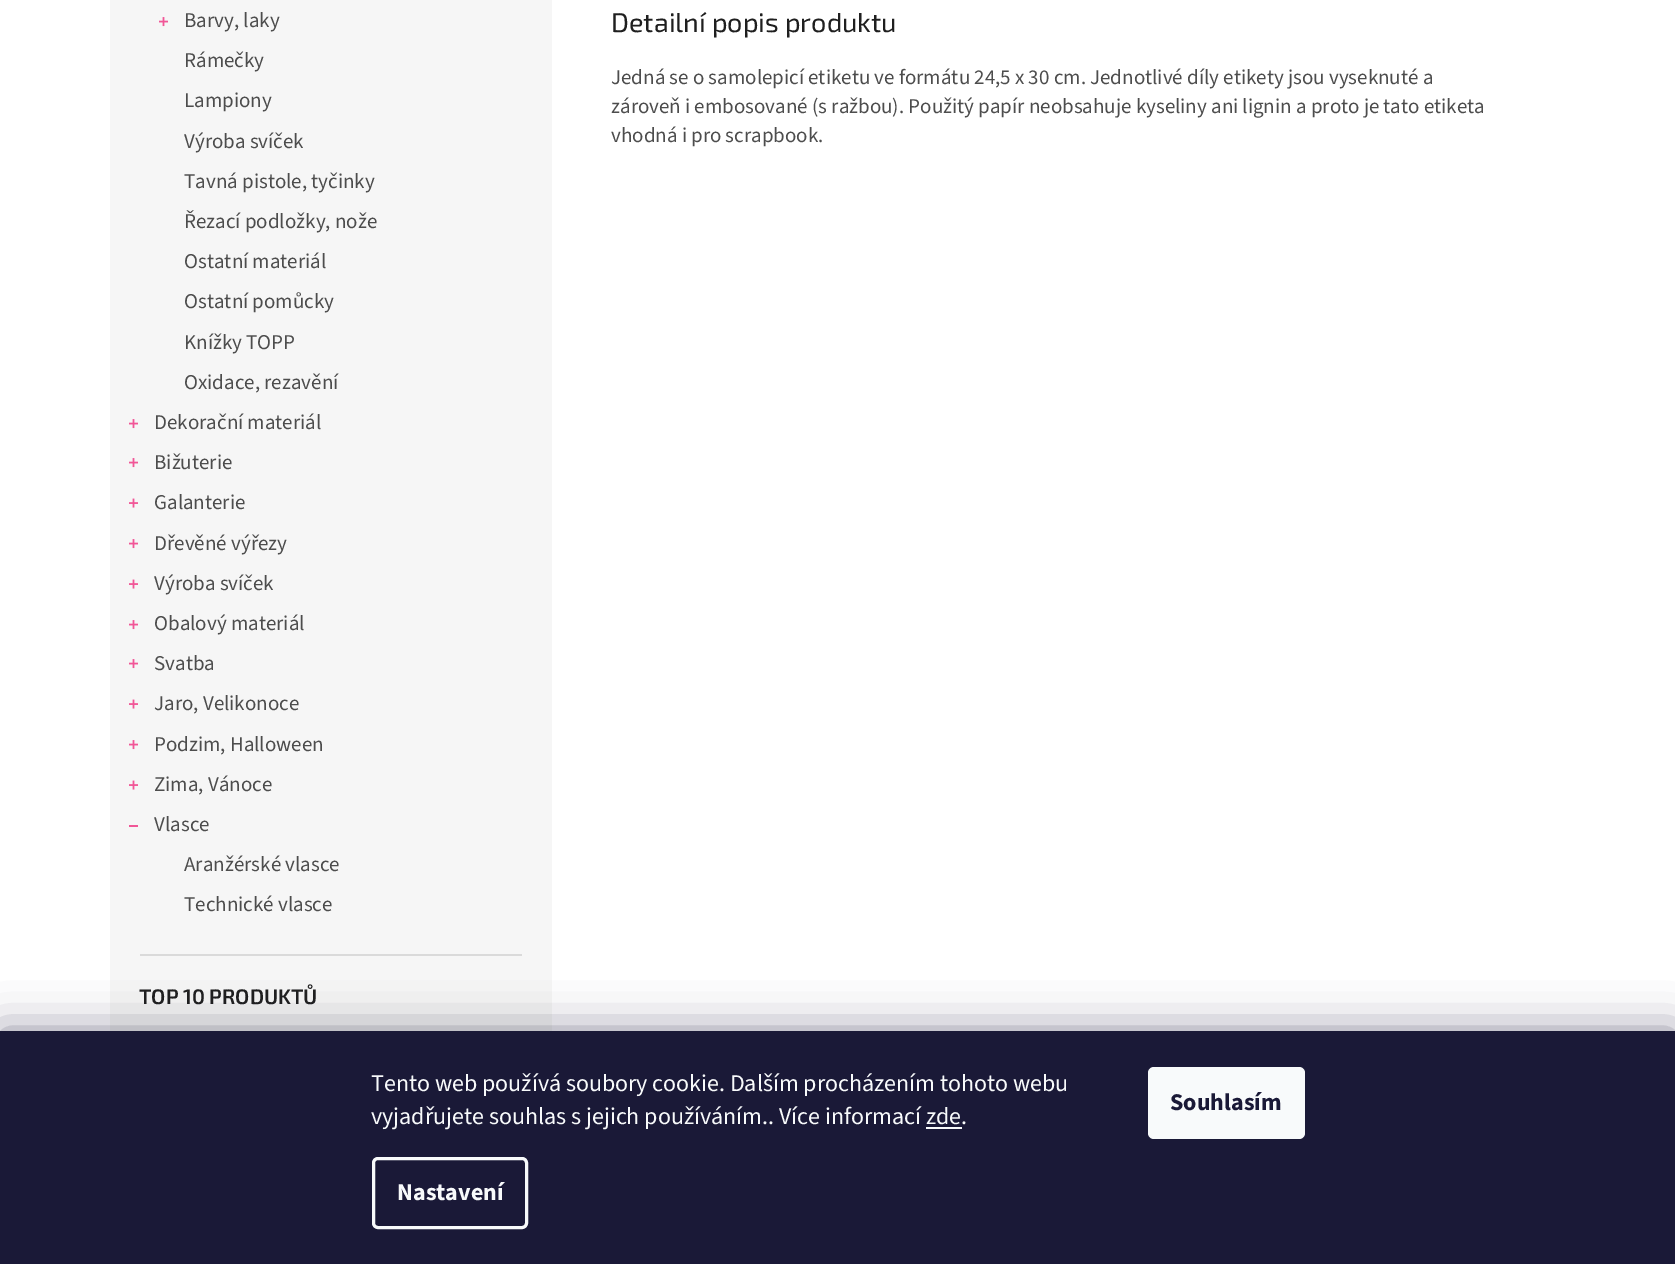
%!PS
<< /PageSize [1675 1264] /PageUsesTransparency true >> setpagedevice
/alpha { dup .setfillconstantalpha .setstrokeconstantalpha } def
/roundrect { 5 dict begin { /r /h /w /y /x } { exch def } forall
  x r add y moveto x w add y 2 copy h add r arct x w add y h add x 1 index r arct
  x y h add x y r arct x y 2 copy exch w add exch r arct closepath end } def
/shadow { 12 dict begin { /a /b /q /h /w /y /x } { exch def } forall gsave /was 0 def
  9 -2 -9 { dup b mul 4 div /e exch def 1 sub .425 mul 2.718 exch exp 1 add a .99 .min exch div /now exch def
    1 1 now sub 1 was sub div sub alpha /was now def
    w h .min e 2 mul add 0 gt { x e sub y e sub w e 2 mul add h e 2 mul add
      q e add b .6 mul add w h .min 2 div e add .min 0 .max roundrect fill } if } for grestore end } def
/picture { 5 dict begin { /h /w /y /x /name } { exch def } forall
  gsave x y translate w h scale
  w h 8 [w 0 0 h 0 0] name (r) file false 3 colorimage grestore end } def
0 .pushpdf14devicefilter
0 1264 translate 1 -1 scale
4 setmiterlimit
1 setgray
0 0 1675 1264 rectfill
0.965 setgray
110 0 442 1031 rectfill
0.855 setgray
140 954 382 2 rectfill
(img1.rgb) 159 17 9 10 picture
/SourceSans3-Regular [21 0 0 -21 0 0] selectfont
0.302 setgray
184 27 moveto (Barvy, laky) show
184 67 moveto (Rámečky) show
184 107 moveto (Lampiony) show
184 148 moveto (Výroba svíček) show
184 188 moveto (Tavná pistole, tyčinky) show
184 228 moveto (Řezací podložky, nože) show
184 268 moveto (Ostatní materiál) show
184 308 moveto (Ostatní pomůcky) show
184 349 moveto (Knížky TOPP) show
184 389 moveto (Oxidace, rezavění) show
(img1.rgb) 129 419 9 10 picture
154 429 moveto (Dekorační materiál) show
(img1.rgb) 129 458 9 10 picture
154 469 moveto (Bižuterie) show
(img2.rgb) 129 498 9 10 picture
154 509 moveto (Galanterie) show
(img1.rgb) 129 539 9 10 picture
154 550 moveto (Dřevěné výřezy) show
(img2.rgb) 129 579 9 10 picture
154 590 moveto (Výroba svíček) show
(img1.rgb) 129 620 9 10 picture
154 630 moveto (Obalový materiál) show
(img1.rgb) 129 659 9 10 picture
154 670 moveto (Svatba) show
(img2.rgb) 129 699 9 10 picture
154 710 moveto (Jaro, Velikonoce) show
(img1.rgb) 129 740 9 10 picture
154 751 moveto (Podzim, Halloween) show
(img2.rgb) 129 780 9 10 picture
154 791 moveto (Zima, Vánoce) show
0.945 0.337 0.592 setrgbcolor
129 825 9 2 rectfill
0.302 setgray
154 831 moveto (Vlasce) show
184 871 moveto (Aranžérské vlasce) show
184 911 moveto (Technické vlasce) show
/Exo2-SemiBold [21 0 0 -21 0 0] selectfont
0.122 setgray
139 1004 moveto (TOP 10 PRODUKTŮ) show
/Exo2-Regular [27 0 0 -27 0 0] selectfont
611 32 moveto (Detailní popis produktu) show
/SourceSans3-Regular [21 0 0 -21 0 0] selectfont
0.302 setgray
611 84 moveto (Jedná se o samolepicí etiketu ve formátu 24,5 x 30 cm. Jednotlivé díly etikety jsou vyseknuté a) show
611 113 moveto (zároveň i embosované \(s ražbou\). Použitý papír neobsahuje kyseliny ani lignin a proto je tato etiketa) show
611 142 moveto (vhodná i pro scrapbook.) show
0.106 0.098 0.224 setrgbcolor
0 1031 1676 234 0 22.5 0.5 shadow
0.102 0.098 0.216 setrgbcolor
0 1031 1675 233 rectfill
/SourceSans3-Regular [24 0 0 -24 0 0] selectfont
0.973 0.98 0.984 setrgbcolor
371 1091 moveto (Tento web používá soubory cookie. Dalším procházením tohoto webu) show
371 1124 moveto (vyjadřujete souhlas s jejich používáním.. Více informací zde.) show
926 1127 36 2 rectfill
3 setlinewidth
373.5 1158.5 153 69 4.5 roundrect stroke
/SourceSans3-Bold [24 0 0 -24 0 0] selectfont
397 1200 moveto (Nastavení) show
1148 1067 157 72 6 roundrect fill
0.102 0.098 0.216 setrgbcolor
1170 1110 moveto (Souhlasím) show
.poppdf14devicefilter showpage
